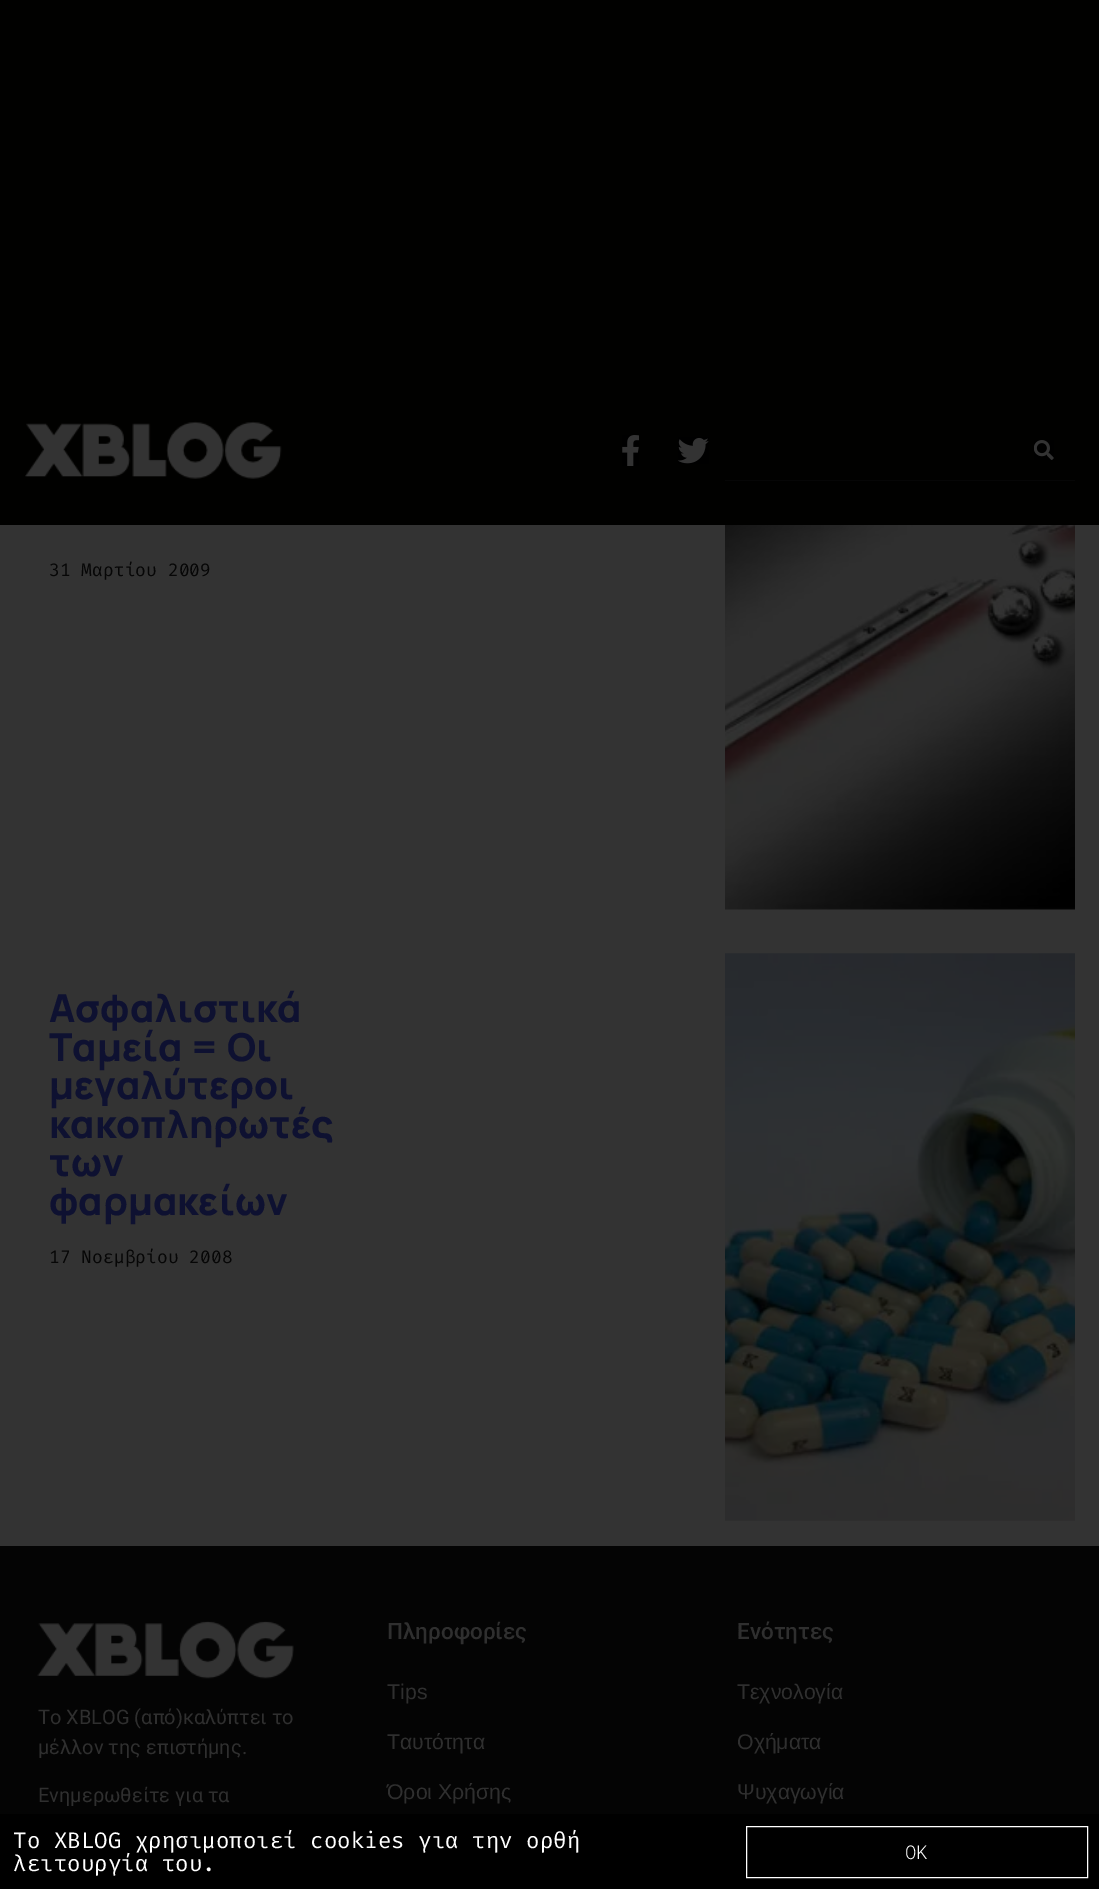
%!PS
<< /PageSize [1099 1889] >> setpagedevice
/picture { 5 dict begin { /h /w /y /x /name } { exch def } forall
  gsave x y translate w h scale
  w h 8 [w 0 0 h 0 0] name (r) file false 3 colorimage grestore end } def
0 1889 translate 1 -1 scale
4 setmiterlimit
0.2 setgray
0 0 1099 1889 rectfill
0.004 0.004 0 setrgbcolor
0 0 1099 525 rectfill
(img1.rgb) 25 421 257 58 picture
(img2.rgb) 622 435 17 31 picture
(img3.rgb) 678 437 31 27 picture
0.024 setgray
725 480 350 1 rectfill
(img4.rgb) 1034 440 20 20 picture
/FiraCode-Regular [18 0 0 -18 0 0] selectfont
49 576 moveto (31 Μαρτίου 2009) show
(img5.rgb) 725 525 350 385 picture
/Manrope-ExtraBold [38.5 0 0 -38.5 0 0] selectfont
0.055 0.067 0.192 setrgbcolor
49 1022 moveto (Ασφαλιστικά) show
49 1061 moveto (Ταμεία = Οι) show
49 1099 moveto (μεγαλύτεροι) show
49 1138 moveto (κακοπληρωτές) show
49 1176 moveto (των) show
49 1215 moveto (φαρμακείων) show
/FiraCode-Regular [18 0 0 -18 0 0] selectfont
0.024 setgray
49 1263 moveto (17 Νοεμβρίου 2008) show
(img6.rgb) 725 953 350 568 picture
0.016 setgray
0 1546 1099 268 rectfill
(img7.rgb) 37 1621 257 58 picture
/Roboto-Regular [20 0 0 -20 0 0] selectfont
0.184 setgray
38 1724 moveto (Το XBLOG \(από\)καλύπτει το) show
38 1754 moveto (μέλλον της επιστήμης.) show
38 1802 moveto (Ενημερωθείτε για τα) show
/Roboto-Medium [22.5 0 0 -22.5 0 0] selectfont
387 1639 moveto (Πληροφορίες) show
/LiberationSans-Regular [21.25 0 0 -21.25 0 0] selectfont
387 1699 moveto (Tips) show
387 1749 moveto (Ταυτότητα) show
387 1799 moveto (Όροι Χρήσης) show
/Roboto-Medium [22.5 0 0 -22.5 0 0] selectfont
737 1639 moveto (Ενότητες) show
/LiberationSans-Regular [21.25 0 0 -21.25 0 0] selectfont
737 1699 moveto (Τεχνολογία) show
737 1749 moveto (Οχήματα) show
737 1799 moveto (Ψυχαγωγία) show
0 setgray
0 1814 1099 75 rectfill
/FiraCode-Regular [22.5 0 0 -22.5 0 0] selectfont
1 setgray
13 1848 moveto (Το XBLOG χρησιμοποιεί cookies για την ορθή) show
13 1871 moveto (λειτουργία του.) show
746.5 1826.5 341 51 rectstroke
/RobotoMono-Light [19 0 0 -19 0 0] selectfont
905 1859 moveto (OK) show
showpage
